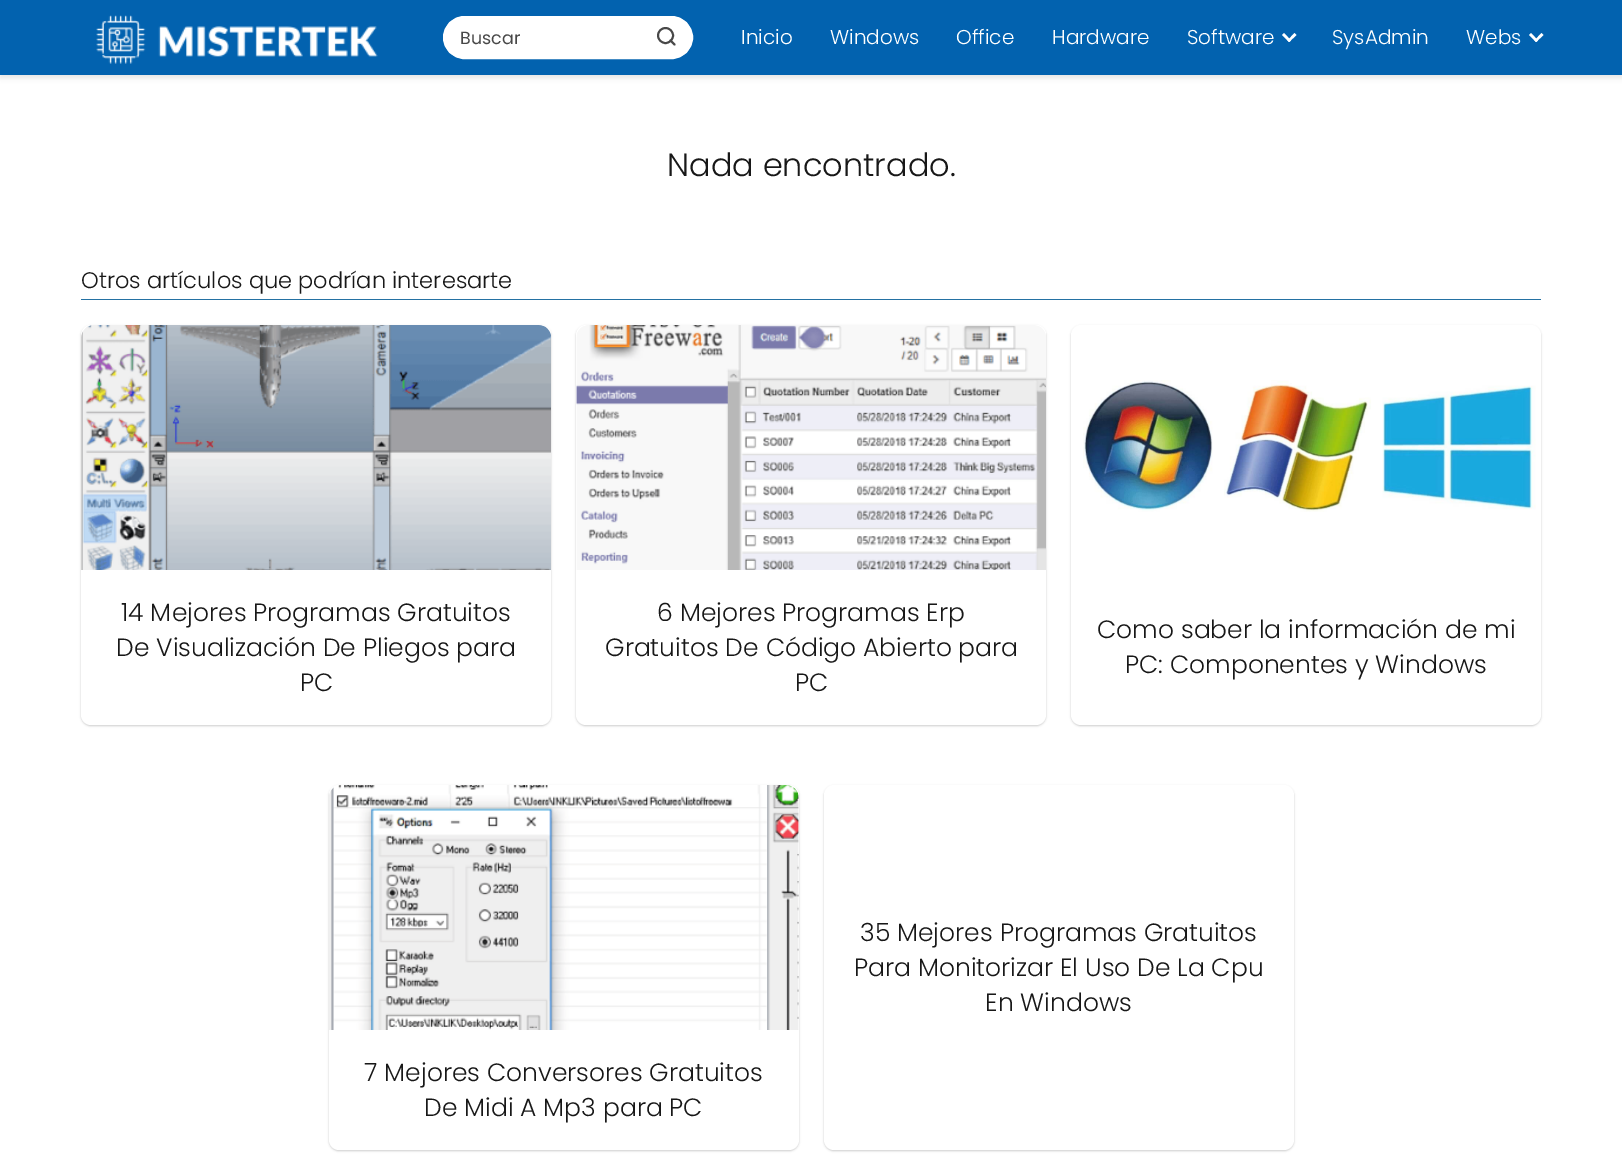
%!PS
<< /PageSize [1622 1161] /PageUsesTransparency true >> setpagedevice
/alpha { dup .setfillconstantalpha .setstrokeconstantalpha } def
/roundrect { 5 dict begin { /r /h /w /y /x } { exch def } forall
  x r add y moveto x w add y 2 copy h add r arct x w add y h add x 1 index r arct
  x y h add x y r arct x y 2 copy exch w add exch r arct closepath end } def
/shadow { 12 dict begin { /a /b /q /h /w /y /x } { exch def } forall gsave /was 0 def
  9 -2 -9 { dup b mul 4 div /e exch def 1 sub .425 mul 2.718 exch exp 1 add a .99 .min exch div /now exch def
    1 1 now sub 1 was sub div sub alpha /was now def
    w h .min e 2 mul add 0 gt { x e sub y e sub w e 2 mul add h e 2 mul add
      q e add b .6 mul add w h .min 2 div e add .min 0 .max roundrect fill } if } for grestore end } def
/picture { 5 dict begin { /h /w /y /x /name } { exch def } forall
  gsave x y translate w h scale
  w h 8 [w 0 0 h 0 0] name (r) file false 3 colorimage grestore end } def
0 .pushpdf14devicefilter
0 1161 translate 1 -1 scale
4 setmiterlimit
1 setgray
0 0 1622 1161 rectfill
0 setgray
0 3 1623 75 0 2.5 0.1 shadow
0.008 0.384 0.686 setrgbcolor
0 0 1622 75 rectfill
(img1.rgb) 96 15 282 49 picture
1 setgray
443.5 16.5 249 42 21 roundrect gsave fill grestore
stroke
/Poppins-Regular [17.5 0 0 -17.5 0 0] selectfont
0.282 setgray
460 44 moveto (Buscar) show
1.9 setlinewidth
newpath 665.5 35.5 7.5 0 360 arc closepath stroke
1 setlinecap
1 setlinejoin
newpath 674.5 44.5 moveto 670.5 40.5 lineto stroke
/Poppins-Light [20 0 0 -20 0 0] selectfont
1 setgray
741 44 moveto (Inicio) show
830 44 moveto (Windows) show
956 44 moveto (Office) show
1052 44 moveto (Hardware) show
1187 44 moveto (Software) show
newpath 1294.5 33 moveto 1296.5 35 lineto 1289 42 lineto 1287.5 40.5 lineto closepath fill
newpath 1284 33 moveto 1291 40.5 lineto 1289 42 lineto 1282 35 lineto closepath fill
1332 44 moveto (SysAdmin) show
1466 44 moveto (Webs) show
newpath 1541.5 33 moveto 1543.5 35 lineto 1536 42 lineto 1534.5 40.5 lineto closepath fill
newpath 1531 33 moveto 1538 40.5 lineto 1536 42 lineto 1529 35 lineto closepath fill
/Poppins-Light [32 0 0 -32 0 0] selectfont
0.094 setgray
667 176 moveto (Nada encontrado.) show
0.141 0.443 0.639 setrgbcolor
81 299 1460 1 rectfill
/Poppins-Light [22.5 0 0 -22.5 0 0] selectfont
0.094 setgray
81 288 moveto (Otros artículos que podrían interesarte) show
0 setgray
81 326 470 400 10 1 0.2 shadow
1 setgray
81 325 470 400 10 roundrect fill
(img2.rgb) 81 325 470 245 picture
/Poppins-Light [25 0 0 -25 0 0] selectfont
0.094 setgray
121 621 moveto (14 Mejores Programas Gratuitos) show
116 656 moveto (De Visualización De Pliegos para) show
300 691 moveto (PC) show
0 setgray
576 326 470 400 10 1 0.2 shadow
1 setgray
576 325 470 400 10 roundrect fill
(img3.rgb) 576 325 470 245 picture
0.094 setgray
657 621 moveto (6 Mejores Programas Erp) show
605 656 moveto (Gratuitos De Código Abierto para) show
795 691 moveto (PC) show
0 setgray
1071 326 470 400 10 1 0.2 shadow
1 setgray
1071 325 470 400 10 roundrect fill
(img4.rgb) 1083 380 453 132 picture
0.094 setgray
1097 638 moveto (Como saber la información de mi) show
1125 673 moveto (PC: Componentes y Windows) show
0 setgray
824 786 470 365 10 1 0.2 shadow
1 setgray
824 785 470 365 10 roundrect fill
0.094 setgray
860 941 moveto (35 Mejores Programas Gratuitos) show
854 976 moveto (Para Monitorizar El Uso De La Cpu) show
985 1011 moveto (En Windows) show
0 setgray
329 786 470 365 10 1 0.2 shadow
1 setgray
329 785 470 365 10 roundrect fill
(img5.rgb) 329 785 470 245 picture
0.094 setgray
364 1081 moveto (7 Mejores Conversores Gratuitos) show
424 1116 moveto (De Midi A Mp3 para PC) show
.poppdf14devicefilter showpage
